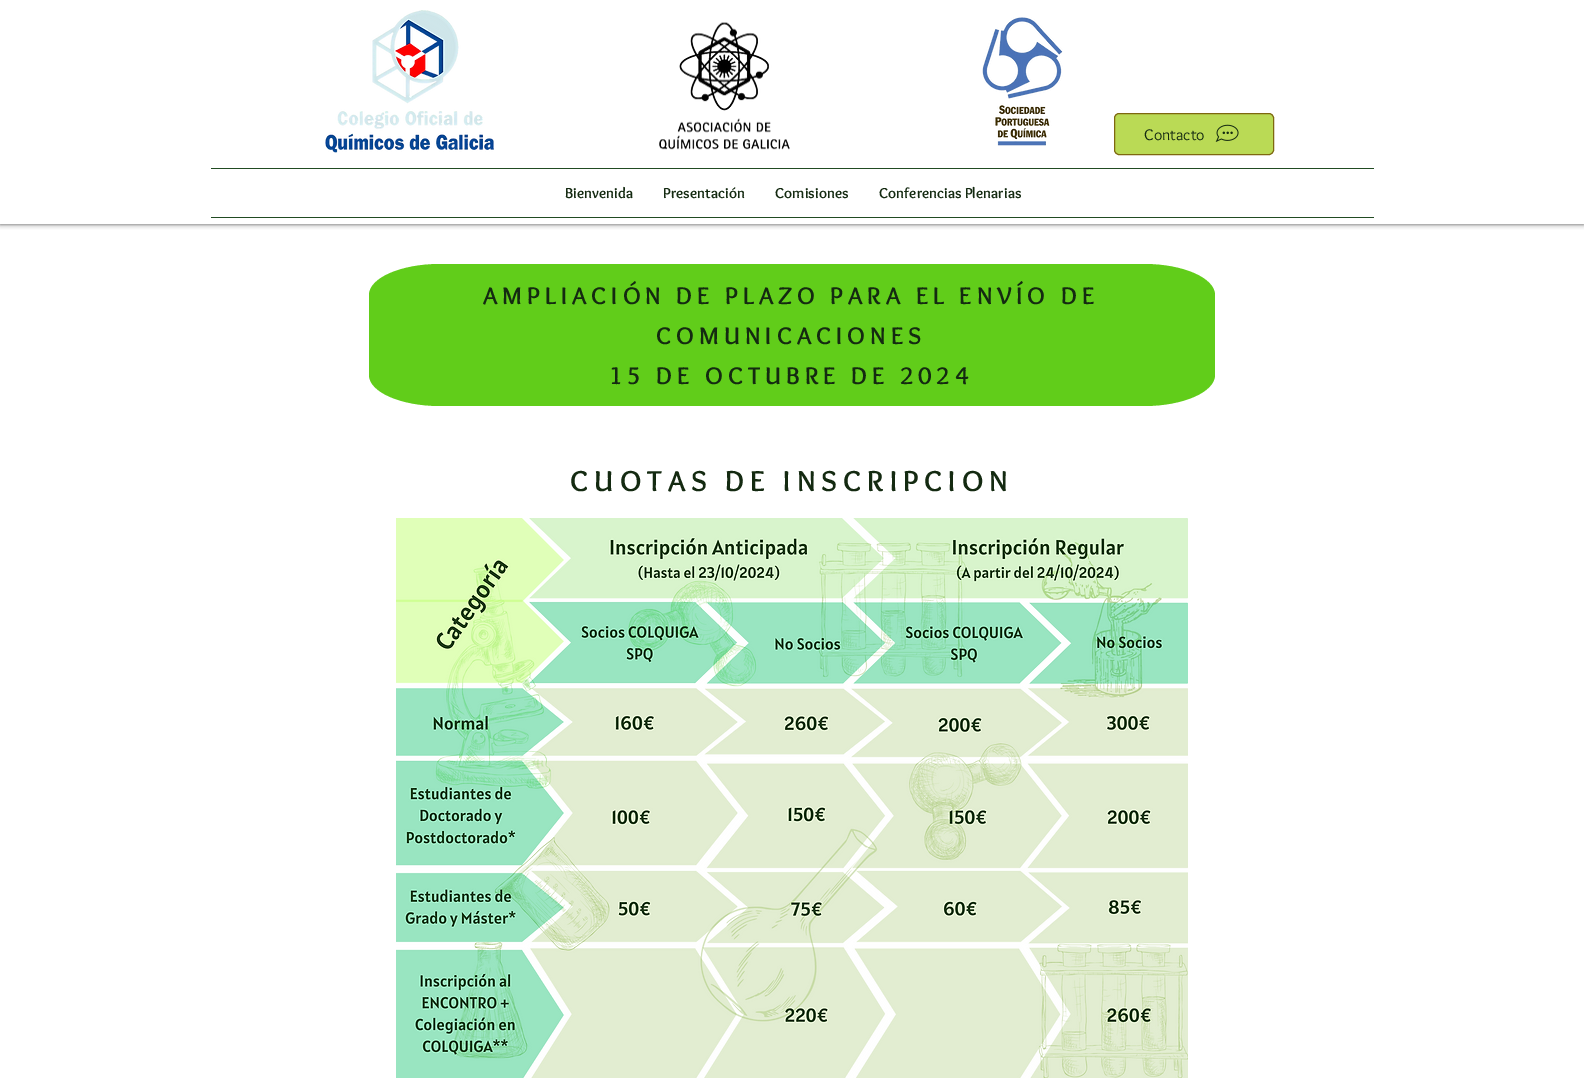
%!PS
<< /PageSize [1584 1078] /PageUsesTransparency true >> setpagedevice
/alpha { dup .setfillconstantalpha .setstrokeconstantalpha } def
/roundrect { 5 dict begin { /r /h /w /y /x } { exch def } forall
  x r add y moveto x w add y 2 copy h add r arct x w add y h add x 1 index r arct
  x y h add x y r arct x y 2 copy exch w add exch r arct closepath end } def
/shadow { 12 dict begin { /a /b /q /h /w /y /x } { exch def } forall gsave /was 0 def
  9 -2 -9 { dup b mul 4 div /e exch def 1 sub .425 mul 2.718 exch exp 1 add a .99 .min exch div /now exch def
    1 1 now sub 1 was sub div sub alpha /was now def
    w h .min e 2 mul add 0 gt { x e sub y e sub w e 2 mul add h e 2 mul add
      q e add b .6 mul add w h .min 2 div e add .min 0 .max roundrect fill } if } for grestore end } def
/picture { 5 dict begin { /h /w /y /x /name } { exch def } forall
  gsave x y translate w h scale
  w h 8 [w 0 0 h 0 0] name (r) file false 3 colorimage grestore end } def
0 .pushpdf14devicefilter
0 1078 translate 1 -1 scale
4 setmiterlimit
1 setgray
0 0 1584 1078 rectfill
0 setgray
0 0 1584 224 0 2.5 0.7 shadow
1 setgray
0 0 1584 224 rectfill
(img1.rgb) 325 10 169 143 picture
(img2.rgb) 659 22 131 128 picture
(img3.rgb) 982 17 81 129 picture
0.729 0.855 0.333 setrgbcolor
1114.5 113.5 159 41 4.5 roundrect gsave fill grestore
0.494 0.408 0.063 setrgbcolor
stroke
/Overlock-Regular [16 0 0 -16 0 0] selectfont
0.078 0.165 0.067 setrgbcolor
1144 140 moveto (Contacto) show
(img4.rgb) 1215 124 24 18 picture
0.129 0.294 0.133 setrgbcolor
211 168 1163 1 rectfill
211 217 1163 1 rectfill
/Overlock-Bold [15 0 0 -15 0 0] selectfont
0.078 0.165 0.067 setrgbcolor
565 198 moveto (Bienvenida) show
663 198 moveto (Presentación) show
775 198 moveto (Comisiones) show
879 198 moveto (Conferencias Plenarias) show
0.38 0.804 0.102 setrgbcolor
newpath 1144 406 moveto 440 406 lineto 401 406 369 392 369 375 curveto 369 295 lineto 369 278 401 264 440 264 curveto 1144 264 lineto 1183 264 1215 278 1215 295 curveto 1215 375 lineto 1215 392 1183 406 1144 406 curveto closepath fill
/Overlock-Bold [25 0 0 -25 0 0] selectfont
0.078 0.165 0.067 setrgbcolor
483 304 moveto 5 0 (AMPLIACIÓN DE PLAZO PARA EL ENVÍO DE) ashow
656 344 moveto 5 0 (COMUNICACIONES) ashow
609 384 moveto 5 0 (15 DE OCTUBRE DE 2024) ashow
/Overlock-Bold [30 0 0 -30 0 0] selectfont
570 491 moveto 6 0 (CUOTAS DE INSCRIPCION) ashow
(img5.rgb) 396 518 792 560 picture
.poppdf14devicefilter showpage
